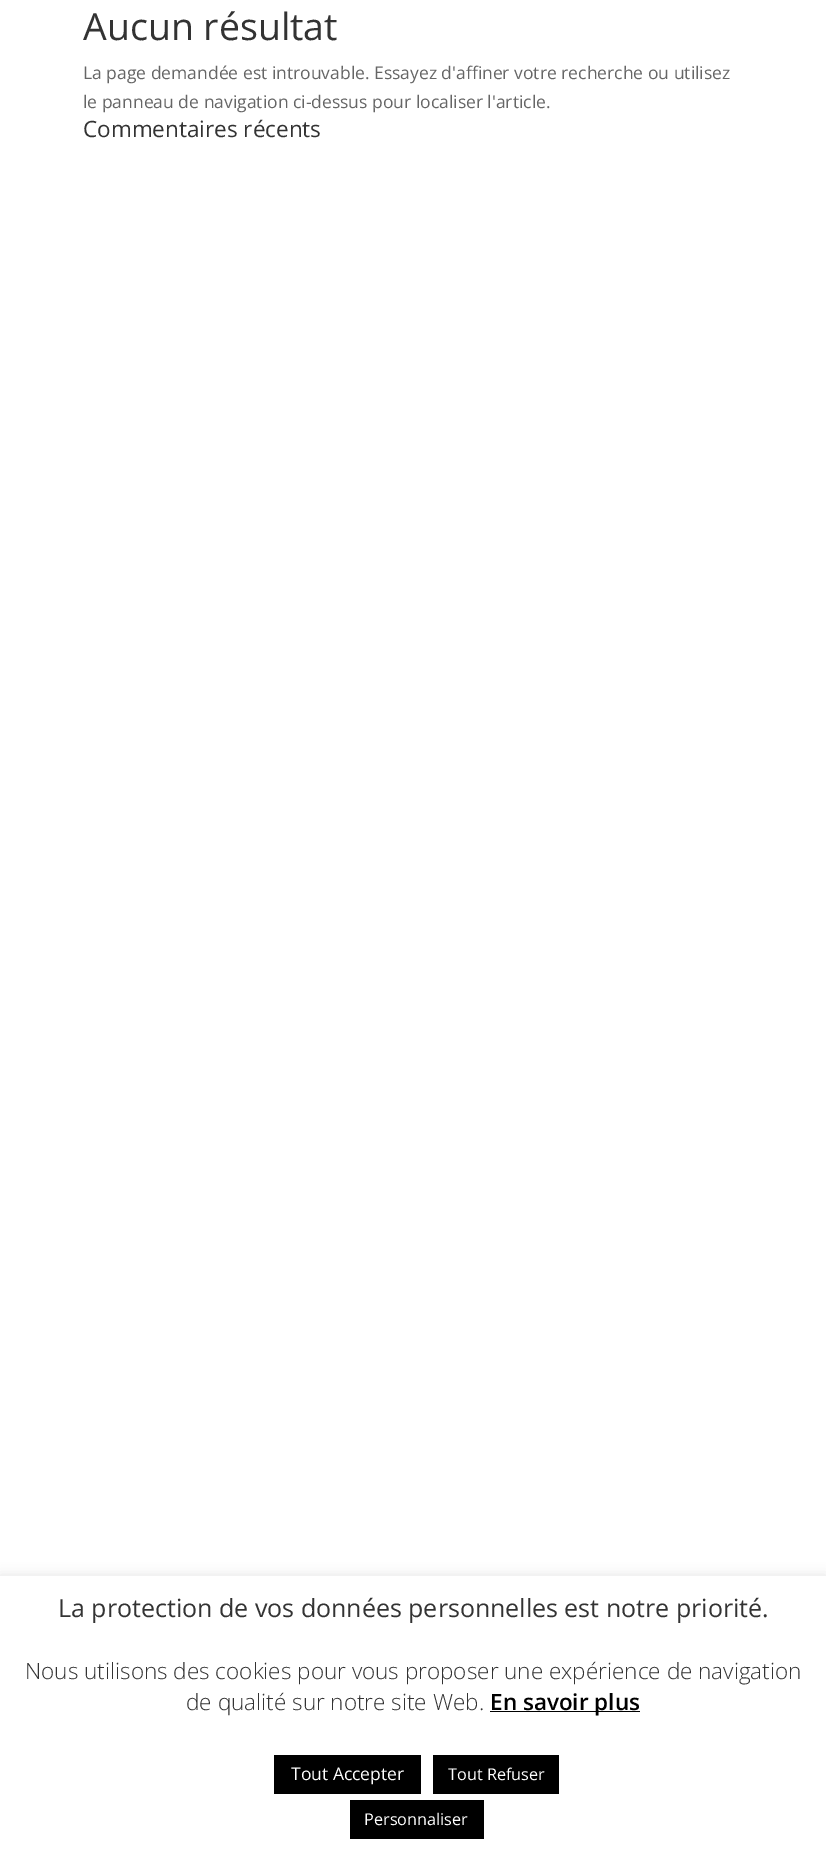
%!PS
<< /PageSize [826 1853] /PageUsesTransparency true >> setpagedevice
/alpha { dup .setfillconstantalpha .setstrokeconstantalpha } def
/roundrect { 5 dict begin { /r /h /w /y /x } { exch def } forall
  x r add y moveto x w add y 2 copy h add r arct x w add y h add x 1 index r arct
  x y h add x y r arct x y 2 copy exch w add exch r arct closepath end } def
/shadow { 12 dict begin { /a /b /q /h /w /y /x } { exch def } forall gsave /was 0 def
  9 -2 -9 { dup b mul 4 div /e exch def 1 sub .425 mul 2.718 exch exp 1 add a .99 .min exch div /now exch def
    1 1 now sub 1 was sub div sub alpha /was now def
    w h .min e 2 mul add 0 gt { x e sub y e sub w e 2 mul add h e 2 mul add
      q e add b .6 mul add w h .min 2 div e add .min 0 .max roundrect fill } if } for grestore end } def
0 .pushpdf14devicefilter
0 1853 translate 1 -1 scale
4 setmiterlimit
1 setgray
0 0 826 1853 rectfill
/OpenSans-Regular [37.5 0 0 -37.5 0 0] selectfont
0.2 setgray
83 40 moveto (Aucun résultat) show
/OpenSans-Regular [17.5 0 0 -17.5 0 0] selectfont
0.4 setgray
83 79 moveto (La page demandée est introuvable. Essayez d'affiner votre recherche ou utilisez) show
83 108 moveto (le panneau de navigation ci-dessus pour localiser l'article.) show
/OpenSans-Regular [22.5 0 0 -22.5 0 0] selectfont
0.2 setgray
83 137 moveto (Commentaires récents) show
0.675 0.671 0.671 setrgbcolor
0 1575 826 278 0 6 0.3 shadow
1 setgray
0 1576 826 277 rectfill
/OpenSans-Regular [25 0 0 -25 0 0] selectfont
0.2 setgray
58 1617 moveto (La protection de vos données personnelles est notre priorité.) show
/OpenSans-Light [22.5 0 0 -22.5 0 0] selectfont
25 1679 moveto (Nous utilisons des cookies pour vous proposer une expérience de navigation) show
186 1710 moveto (de qualité sur notre site Web.) show
0 setgray
490 1711 150 1 rectfill
/OpenSans-SemiBold [22.5 0 0 -22.5 0 0] selectfont
490 1710 moveto (En savoir plus) show
274 1755 147 39 rectfill
/OpenSans-Regular [17.5 0 0 -17.5 0 0] selectfont
1 setgray
291 1780 moveto (Tout Accepter) show
0 setgray
433 1755 126 39 rectfill
/OpenSans-Regular [16.25 0 0 -16.25 0 0] selectfont
1 setgray
448 1780 moveto (Tout Refuser) show
0 setgray
350 1800 134 39 rectfill
1 setgray
364 1825 moveto (Personnaliser) show
.poppdf14devicefilter showpage
